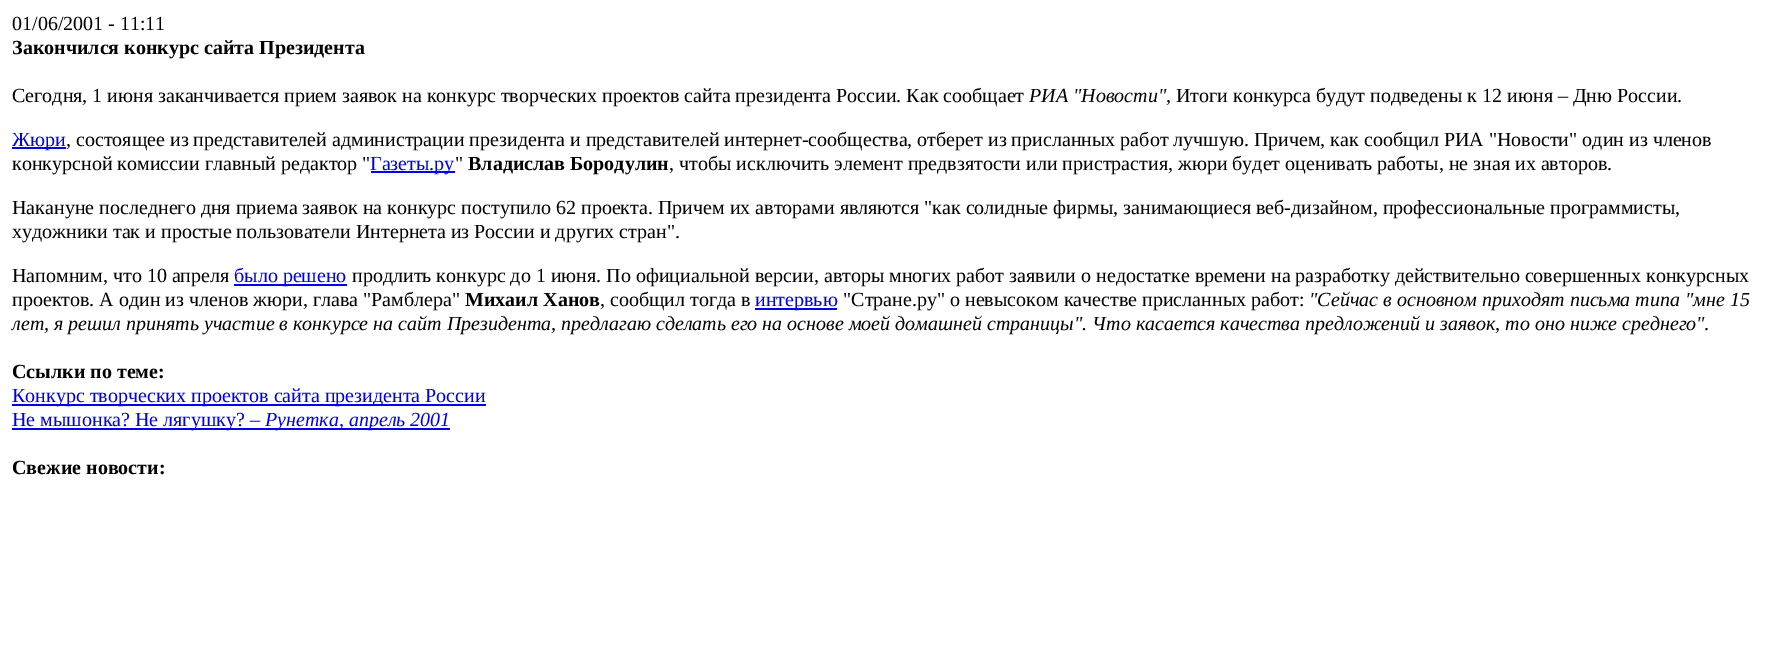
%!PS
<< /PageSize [1780 660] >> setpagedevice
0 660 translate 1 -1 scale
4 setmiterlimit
1 setgray
0 0 1780 660 rectfill
/LiberationSerif-Regular [20 0 0 -20 0 0] selectfont
0 setgray
12 30 moveto (01/06/2001 - 11:11) show
/LiberationSerif-Bold [20 0 0 -20 0 0] selectfont
12 54 moveto (Закончился конкурс сайта Президента) show
/LiberationSerif-Regular [20 0 0 -20 0 0] selectfont
12 102 moveto (Сегодня, 1 июня заканчивается прием заявок на конкурс творческих проектов сайта президента России. Как сообщает) show
/LiberationSerif-Italic [20 0 0 -20 0 0] selectfont
1029 102 moveto (РИА "Новости") show
/LiberationSerif-Regular [20 0 0 -20 0 0] selectfont
1166 102 moveto (, Итоги конкурса будут подведены к 12 июня – Дню России.) show
0 0 0.933 setrgbcolor
12 147 54 2 rectfill
12 146 moveto (Жюри) show
0 setgray
66 146 moveto (, состоящее из представителей администрации президента и представителей интернет-сообщества, отберет из присланных работ лучшую. Причем, как сообщил РИА "Новости" один из членов) show
12 170 moveto (конкурсной комиссии главный редактор ") show
0 0 0.933 setrgbcolor
371 171 84 2 rectfill
370 170 moveto (Газеты.ру) show
0 setgray
455 170 moveto (") show
/LiberationSerif-Bold [20 0 0 -20 0 0] selectfont
468 170 moveto (Владислав Бородулин) show
/LiberationSerif-Regular [20 0 0 -20 0 0] selectfont
669 170 moveto (, чтобы исключить элемент предвзятости или пристрастия, жюри будет оценивать работы, не зная их авторов.) show
12 214 moveto (Накануне последнего дня приема заявок на конкурс поступило 62 проекта. Причем их авторами являются "как солидные фирмы, занимающиеся веб-дизайном, профессиональные программисты,) show
12 238 moveto (художники так и простые пользователи Интернета из России и других стран".) show
12 282 moveto (Напомним, что 10 апреля) show
0 0 0.933 setrgbcolor
234 284 113 2 rectfill
234 282 moveto (было решено) show
0 setgray
352 282 moveto (продлить конкурс до 1 июня. По официальной версии, авторы многих работ заявили о недостатке времени на разработку действительно совершенных конкурсных) show
12 306 moveto (проектов. А один из членов жюри, глава "Рамблера") show
/LiberationSerif-Bold [20 0 0 -20 0 0] selectfont
465 306 moveto (Михаил Ханов) show
/LiberationSerif-Regular [20 0 0 -20 0 0] selectfont
600 306 moveto (, сообщил тогда в) show
0 0 0.933 setrgbcolor
755 308 82 2 rectfill
755 306 moveto (интервью) show
0 setgray
843 306 moveto ("Стране.ру" о невысоком качестве присланных работ:) show
/LiberationSerif-Italic [20 0 0 -20 0 0] selectfont
1309 306 moveto ("Сейчас в основном приходят письма типа "мне 15) show
12 330 moveto (лет, я решил принять участие в конкурсе на сайт Президента, предлагаю сделать его на основе моей домашней страницы". Что касается качества предложений и заявок, то оно ниже среднего") show
/LiberationSerif-Regular [20 0 0 -20 0 0] selectfont
1704 330 moveto (.) show
/LiberationSerif-Bold [20 0 0 -20 0 0] selectfont
12 378 moveto (Ссылки по теме:) show
0 0 0.933 setrgbcolor
12 404 474 2 rectfill
/LiberationSerif-Regular [20 0 0 -20 0 0] selectfont
12 402 moveto (Конкурс творческих проектов сайта президента России) show
12 428 438 2 rectfill
12 426 moveto (Не мышонка? Не лягушку? –) show
/LiberationSerif-Italic [20 0 0 -20 0 0] selectfont
265 426 moveto (Рунетка, апрель 2001) show
/LiberationSerif-Bold [20 0 0 -20 0 0] selectfont
0 setgray
12 474 moveto (Свежие новости:) show
showpage
